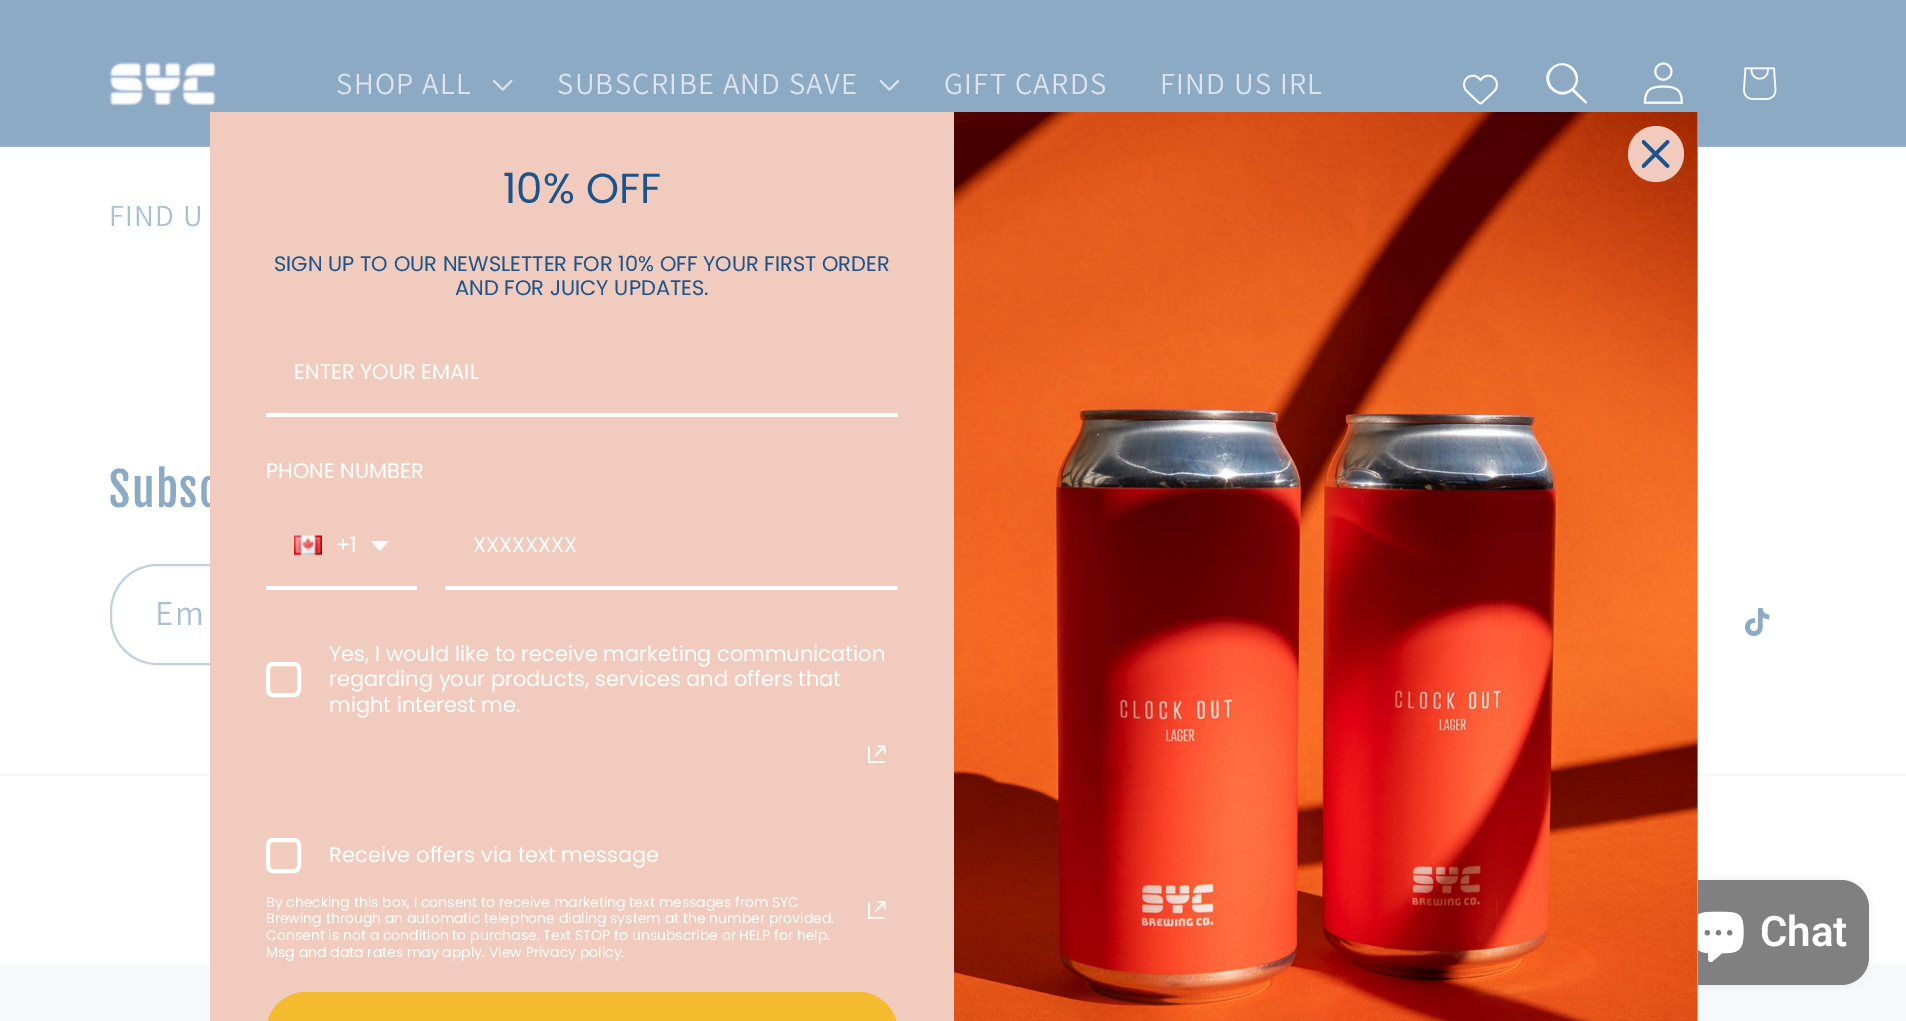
%!PS
<< /PageSize [1906 1021] /PageUsesTransparency true >> setpagedevice
/alpha { dup .setfillconstantalpha .setstrokeconstantalpha } def
/roundrect { 5 dict begin { /r /h /w /y /x } { exch def } forall
  x r add y moveto x w add y 2 copy h add r arct x w add y h add x 1 index r arct
  x y h add x y r arct x y 2 copy exch w add exch r arct closepath end } def
/shadow { 12 dict begin { /a /b /q /h /w /y /x } { exch def } forall gsave /was 0 def
  9 -2 -9 { dup b mul 4 div /e exch def 1 sub .425 mul 2.718 exch exp 1 add a .99 .min exch div /now exch def
    1 1 now sub 1 was sub div sub alpha /was now def
    w h .min e 2 mul add 0 gt { x e sub y e sub w e 2 mul add h e 2 mul add
      q e add b .6 mul add w h .min 2 div e add .min 0 .max roundrect fill } if } for grestore end } def
/picture { 5 dict begin { /h /w /y /x /name } { exch def } forall
  gsave x y translate w h scale
  w h 8 [w 0 0 h 0 0] name (r) file false 3 colorimage grestore end } def
0 .pushpdf14devicefilter
0 1021 translate 1 -1 scale
4 setmiterlimit
0.969 0.973 0.98 setrgbcolor
0 0 1906 1021 rectfill
0.553 0.667 0.773 setrgbcolor
0 0 1906 145 rectfill
0.588 0.69 0.788 setrgbcolor
0 145 1906 2 rectfill
(img1.rgb) 109 62 107 43 picture
/Assistant-Regular [30.6 0 0 -30.6 0 0] selectfont
0.867 0.894 0.929 setrgbcolor
336 94 moveto 1.3 0 (SHOP ALL) ashow
(img2.rgb) 492 79 21 12 picture
557 94 moveto 1.3 0 (SUBSCRIBE AND SAVE) ashow
(img3.rgb) 879 79 21 12 picture
944 94 moveto 1.3 0 (GIFT CARDS) ashow
1160 94 moveto 1.3 0 (FIND US IRL) ashow
(img4.rgb) 1463 74 35 31 picture
0.969 0.973 0.98 setrgbcolor
newpath 1572 88 moveto 1559 100 1541 82 1553 69 curveto 1565 57 1584 76 1572 88 curveto 1572 91 moveto 1557 103 1537 81 1551 68 curveto 1566 54 1587 74 1574 89 curveto 1587 102 lineto 1587 103 1586 104 1585 103 curveto closepath eofill
(img5.rgb) 1643 62 40 42 picture
(img6.rgb) 1743 67 34 33 picture
1 setgray
0 147 1906 817 rectfill
0.667 0.749 0.827 setrgbcolor
109 226 moveto 1.3 0 (FIND U) ashow
/FjallaOne-Regular [46 0 0 -46 0 0] selectfont
0.553 0.667 0.773 setrgbcolor
109 507 moveto 1.5 0 (Subsc) ashow
0.757 0.816 0.875 setrgbcolor
2 setlinewidth
111 565 786 99 46 roundrect stroke
/Assistant-Regular [35 0 0 -35 0 0] selectfont
0.667 0.749 0.827 setrgbcolor
155 625 moveto 2 0 (Em) ashow
(img7.rgb) 1745 608 25 28 picture
0.965 0.973 0.984 setrgbcolor
0 774 1906 2 rectfill
0.502 setgray
1671 880 198 105 28 4.5 0.15 shadow
1671 880 198 105 28 roundrect fill
0.945 0.796 0.745 setrgbcolor
1697 112 1 909 rectfill
(img12.rgb) 954 112 744 909 picture
newpath 1656 154 28 0 360 arc closepath fill
(img8.rgb) 1642 140 28 28 picture
210 112 744 909 rectfill
/Poppins-Regular [42 0 0 -42 0 0] selectfont
0.106 0.329 0.541 setrgbcolor
503 203 moveto (10% OFF) show
/Poppins-Regular [21 0 0 -21 0 0] selectfont
274 271 moveto (SIGN UP TO OUR NEWSLETTER FOR 10% OFF YOUR FIRST ORDER) show
455 295 moveto (AND FOR JUICY UPDATES.) show
1 setgray
266 413 632 4 rectfill
294 379 moveto (ENTER YOUR EMAIL) show
266 478 moveto (PHONE NUMBER) show
266 586 151 4 rectfill
(img9.rgb) 294 535 28 21 picture
336 552 moveto (+1) show
newpath 371 541 moveto 388.5 541 lineto 380 551 lineto closepath eofill
445 586 453 4 rectfill
473 552 moveto (XXXXXXXX) show
4 setlinewidth
268 664 31 31 5 roundrect stroke
329 661 moveto (Yes, I would like to receive marketing communication) show
329 686 moveto (regarding your products, services and offers that) show
329 712 moveto (might interest me.) show
(img10.rgb) 868 745 18 18 picture
268 840 31 31 5 roundrect stroke
329 862 moveto (Receive offers via text message) show
/Poppins-Regular [14 0 0 -14 0 0] selectfont
266 907 moveto (By checking this box, I consent to receive marketing text messages from SYC) show
266 923 moveto (Brewing through an automatic telephone dialing system at the number provided.) show
266 940 moveto (Consent is not a condition to purchase. Text STOP to unsubscribe or HELP for help.) show
266 957 moveto (Msg and data rates may apply. View Privacy policy.) show
(img11.rgb) 868 901 18 18 picture
0.957 0.733 0.18 setrgbcolor
newpath 306.5 992 moveto 857.5 992 lineto 880 992 898 1010 898 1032.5 curveto 898 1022 lineto 266 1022 lineto 266 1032.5 lineto 266 1010 284 992 306.5 992 curveto closepath fill
2 setlinewidth
267 993 630 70 39.5 roundrect stroke
(img13.rgb) 1698 911 46 52 picture
/Roboto-SemiBold [42 0 0 -42 0 0] selectfont
1 setgray
1760 946 moveto (Chat) show
.poppdf14devicefilter showpage
